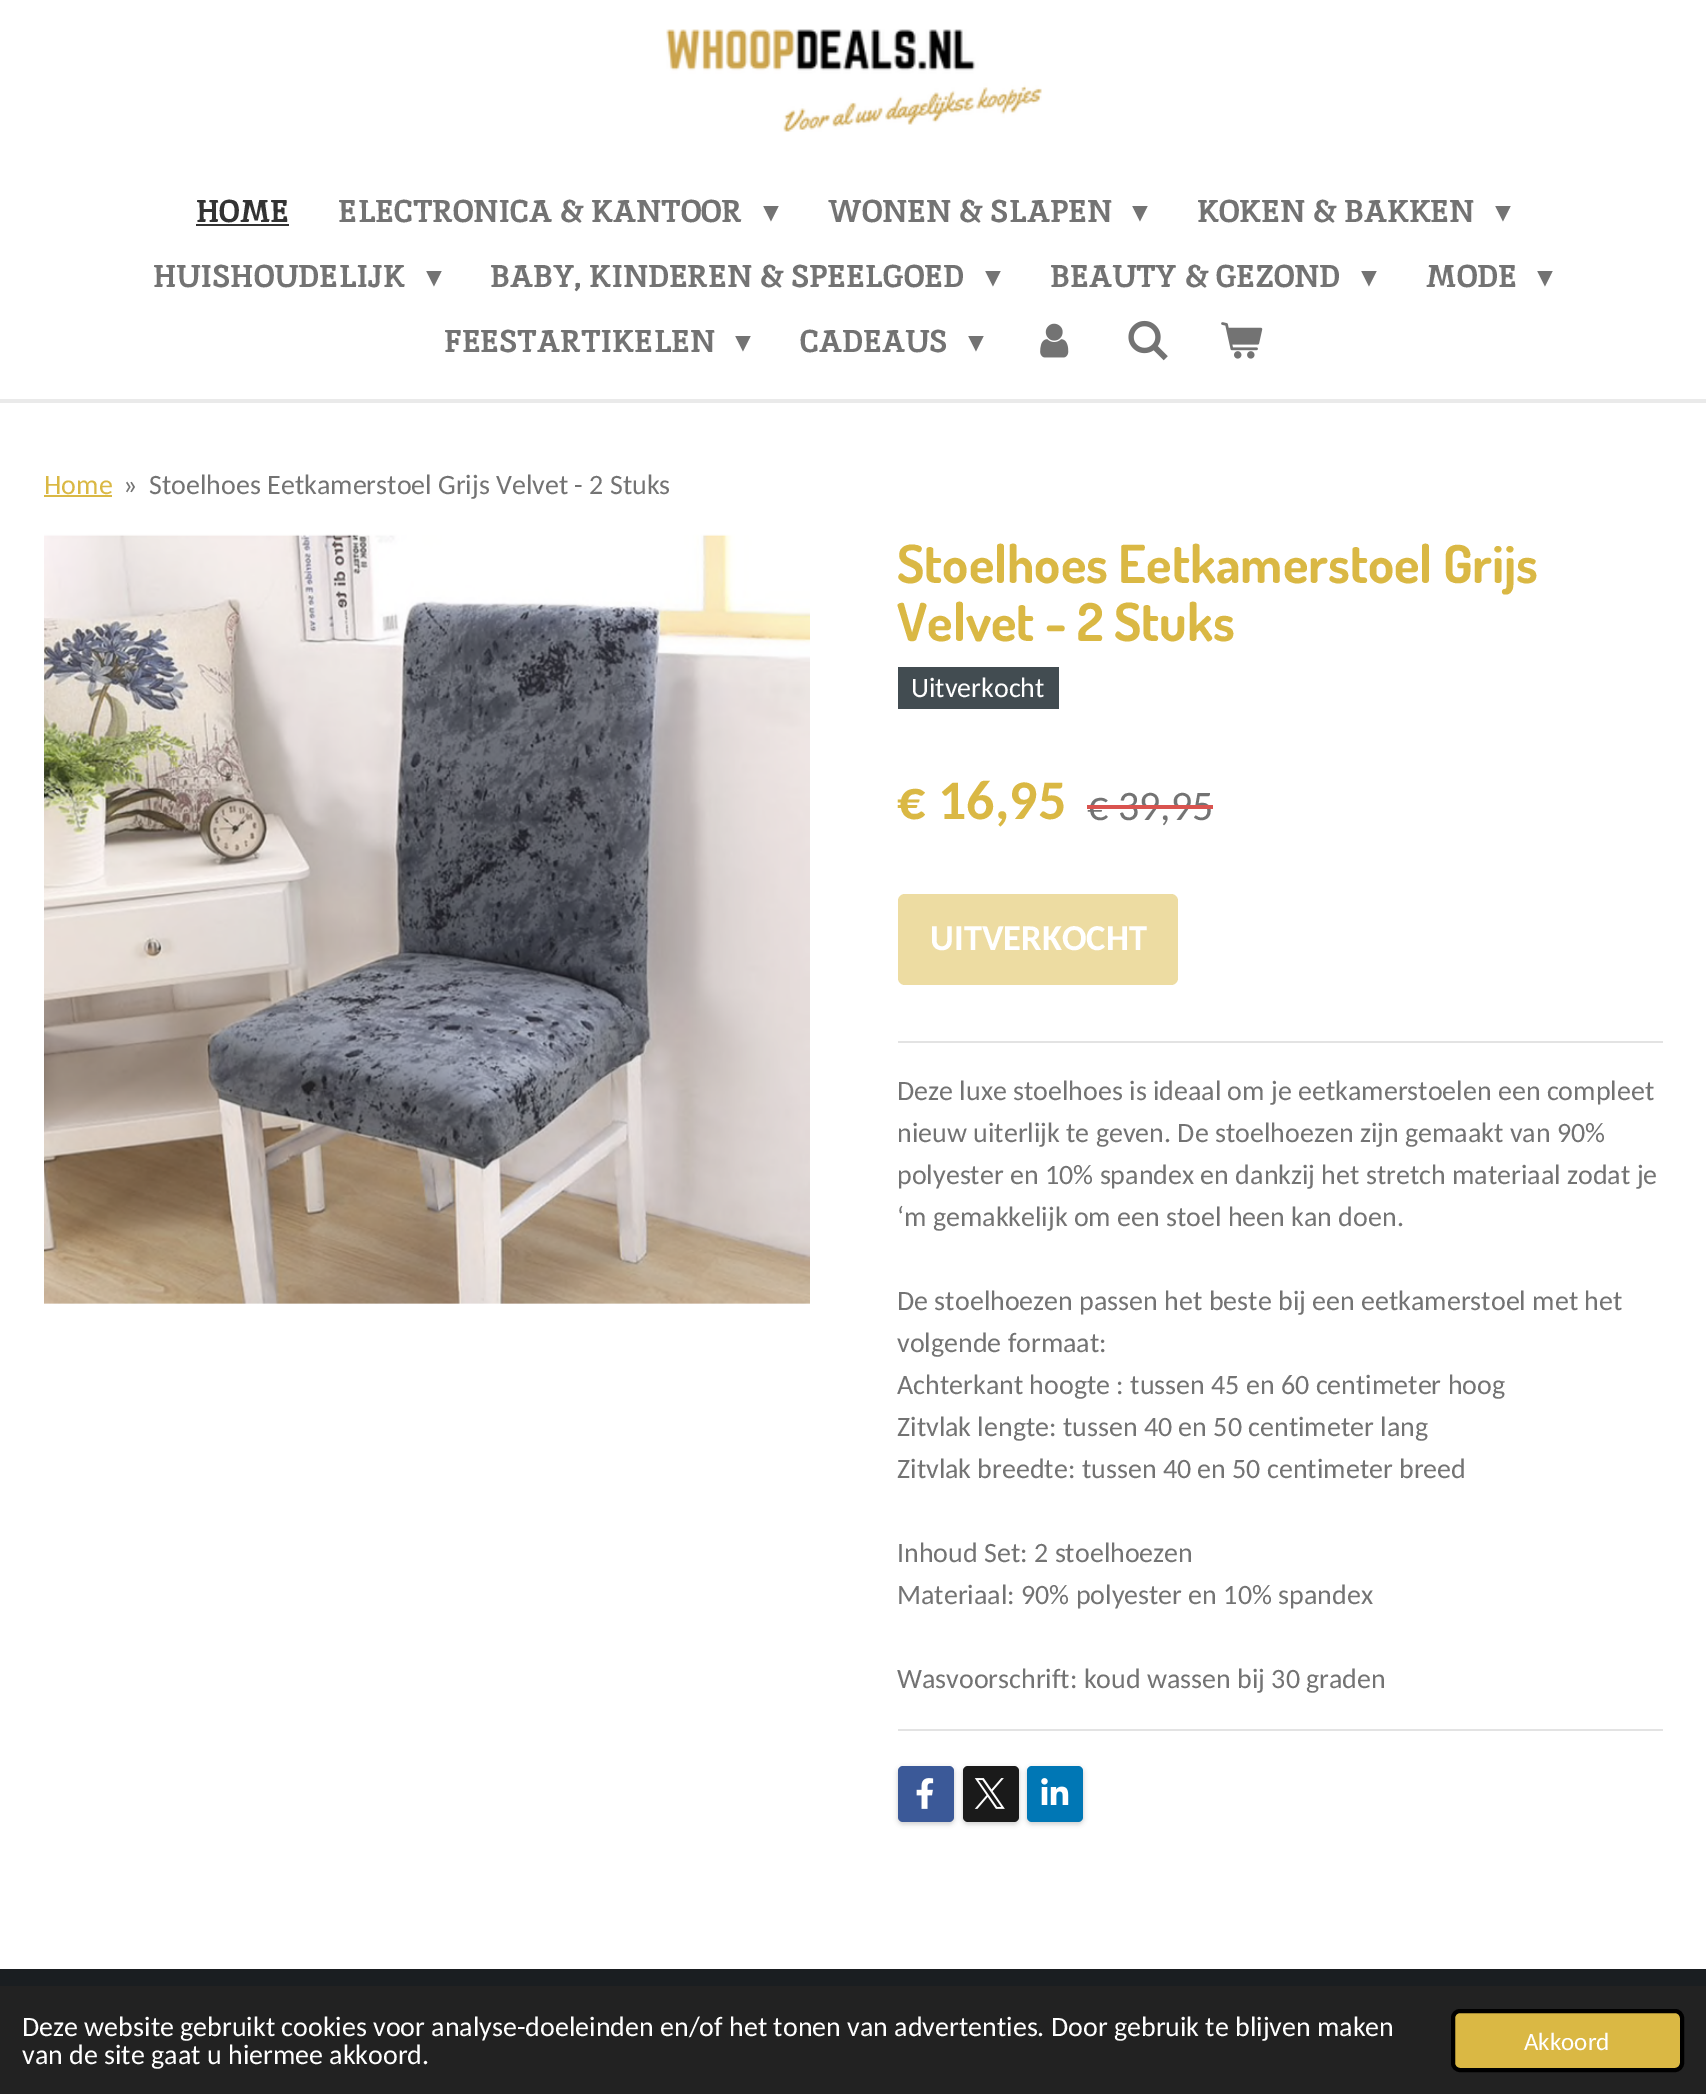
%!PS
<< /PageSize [1706 2094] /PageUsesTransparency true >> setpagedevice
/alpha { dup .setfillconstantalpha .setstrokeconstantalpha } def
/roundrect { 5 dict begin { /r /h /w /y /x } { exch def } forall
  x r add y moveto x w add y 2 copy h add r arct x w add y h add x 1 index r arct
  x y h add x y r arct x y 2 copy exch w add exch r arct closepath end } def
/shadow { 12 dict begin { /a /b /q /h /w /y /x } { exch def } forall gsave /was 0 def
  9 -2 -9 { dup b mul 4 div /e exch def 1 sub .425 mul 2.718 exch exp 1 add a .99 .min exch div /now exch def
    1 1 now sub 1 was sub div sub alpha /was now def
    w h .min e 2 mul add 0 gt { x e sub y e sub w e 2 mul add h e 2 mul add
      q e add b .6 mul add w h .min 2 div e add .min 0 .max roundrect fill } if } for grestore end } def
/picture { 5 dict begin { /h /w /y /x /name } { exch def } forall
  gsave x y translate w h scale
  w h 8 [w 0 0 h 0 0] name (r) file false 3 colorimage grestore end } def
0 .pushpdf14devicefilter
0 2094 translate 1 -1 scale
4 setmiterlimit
1 setgray
0 0 1706 2094 rectfill
(img1.rgb) 666 29 376 103 picture
/Inika-Bold [31.5 0 0 -31.5 0 0] selectfont
0.2 setgray
196 222 moveto (HOME) show
196 224 93 2 rectfill
0.451 setgray
338 222 moveto (ELECTRONICA & KANTOOR) show
/DejaVuSans-Regular [31.5 0 0 -31.5 0 0] selectfont
763 222 moveto (▾) show
/Inika-Bold [31.5 0 0 -31.5 0 0] selectfont
828 222 moveto (WONEN & SLAPEN) show
/DejaVuSans-Regular [31.5 0 0 -31.5 0 0] selectfont
1132 222 moveto (▾) show
/Inika-Bold [31.5 0 0 -31.5 0 0] selectfont
1197 222 moveto (KOKEN & BAKKEN) show
/DejaVuSans-Regular [31.5 0 0 -31.5 0 0] selectfont
1495 222 moveto (▾) show
/Inika-Bold [31.5 0 0 -31.5 0 0] selectfont
153 287 moveto (HUISHOUDELIJK) show
/DejaVuSans-Regular [31.5 0 0 -31.5 0 0] selectfont
426 287 moveto (▾) show
/Inika-Bold [31.5 0 0 -31.5 0 0] selectfont
490 287 moveto (BABY, KINDEREN & SPEELGOED) show
/DejaVuSans-Regular [31.5 0 0 -31.5 0 0] selectfont
985 287 moveto (▾) show
/Inika-Bold [31.5 0 0 -31.5 0 0] selectfont
1050 287 moveto (BEAUTY & GEZOND) show
/DejaVuSans-Regular [31.5 0 0 -31.5 0 0] selectfont
1361 287 moveto (▾) show
/Inika-Bold [31.5 0 0 -31.5 0 0] selectfont
1426 287 moveto (MODE) show
/DejaVuSans-Regular [31.5 0 0 -31.5 0 0] selectfont
1537 287 moveto (▾) show
/Inika-Bold [31.5 0 0 -31.5 0 0] selectfont
444 352 moveto (FEESTARTIKELEN) show
/DejaVuSans-Regular [31.5 0 0 -31.5 0 0] selectfont
735 352 moveto (▾) show
/Inika-Bold [31.5 0 0 -31.5 0 0] selectfont
800 352 moveto (CADEAUS) show
/DejaVuSans-Regular [31.5 0 0 -31.5 0 0] selectfont
968 352 moveto (▾) show
(img2.rgb) 1040 323 29 35 picture
(img3.rgb) 1128 320 40 41 picture
(img4.rgb) 1221 322 42 37 picture
0.918 setgray
0 399 1706 4 rectfill
/Carlito-Regular [28 0 0 -28 0 0] selectfont
0.855 0.722 0.267 setrgbcolor
44 494 moveto (Home) show
44 495 68 2 rectfill
0.451 setgray
123 494 moveto (») show
149 494 moveto (Stoelhoes Eetkamerstoel Grijs Velvet - 2 Stuks) show
(img5.rgb) 44 534 766 770 picture
/Dosis-Bold [52.5 0 0 -52.5 0 0] selectfont
0.855 0.722 0.267 setrgbcolor
897 583 moveto (Stoelhoes Eetkamerstoel Grijs) show
897 641 moveto (Velvet - 2 Stuks) show
0.259 0.298 0.318 setrgbcolor
898 667 161 42 rectfill
/Carlito-Regular [28 0 0 -28 0 0] selectfont
1 setgray
911 697 moveto (Uitverkocht) show
/Carlito-Bold [56 0 0 -56 0 0] selectfont
0.855 0.722 0.267 setrgbcolor
897 819 moveto (€ 16,95) show
/Carlito-Regular [42 0 0 -42 0 0] selectfont
0.451 setgray
1087 820 moveto (€ 39,95) show
0.851 0.325 0.31 setrgbcolor
1087 805 126 4 rectfill
0.929 0.863 0.635 setrgbcolor
898 894 280 91 7 roundrect fill
/Carlito-Bold [36.5 0 0 -36.5 0 0] selectfont
1 setgray
930 950 moveto (UITVERKOCHT) show
0.89 setgray
898 1041 765 2 rectfill
/Carlito-Regular [28 0 0 -28 0 0] selectfont
0.451 setgray
897 1100 moveto (Deze luxe stoelhoes is ideaal om je eetkamerstoelen een compleet) show
897 1142 moveto (nieuw uiterlijk te geven. De stoelhoezen zijn gemaakt van 90%) show
897 1184 moveto (polyester en 10% spandex en dankzij het stretch materiaal zodat je) show
897 1226 moveto (‘m gemakkelijk om een stoel heen kan doen.) show
897 1310 moveto (De stoelhoezen passen het beste bij een eetkamerstoel met het) show
897 1352 moveto (volgende formaat:) show
897 1394 moveto (Achterkant hoogte : tussen 45 en 60 centimeter hoog) show
897 1436 moveto (Zitvlak lengte: tussen 40 en 50 centimeter lang) show
897 1478 moveto (Zitvlak breedte: tussen 40 en 50 centimeter breed) show
897 1562 moveto (Inhoud Set: 2 stoelhoezen) show
897 1604 moveto (Materiaal: 90% polyester en 10% spandex) show
897 1688 moveto (Wasvoorschrift: koud wassen bij 30 graden) show
0.89 setgray
898 1729 765 2 rectfill
0 setgray
898 1768 56 56 5 2.5 0.2 shadow
0.231 0.349 0.596 setrgbcolor
898 1766 56 56 5 roundrect fill
(img6.rgb) 916 1778 18 31 picture
0 setgray
963 1768 56 56 5 2.5 0.2 shadow
0.102 setgray
963 1766 56 56 5 roundrect fill
(img7.rgb) 974 1778 31 31 picture
0 setgray
1027 1768 56 56 5 2.5 0.2 shadow
0 0.467 0.71 setrgbcolor
1027 1766 56 56 5 roundrect fill
(img8.rgb) 1041 1778 28 27 picture
0.102 0.118 0.129 setrgbcolor
0 1969 1706 17 rectfill
0.133 setgray
0 1986 1706 108 rectfill
1 setgray
22 2036 moveto (Deze website gebruikt cookies voor analyse-doeleinden en/of het tonen van advertenties. Door gebruik te blijven maken) show
22 2064 moveto (van de site gaat u hiermee akkoord.) show
0.855 0.722 0.267 setrgbcolor
1453 2011 229 59 7 roundrect gsave fill grestore
0 setgray
4 setlinewidth
stroke
/Carlito-Regular [25 0 0 -25 0 0] selectfont
1 setgray
1524 2050 moveto (Akkoord) show
.poppdf14devicefilter showpage
